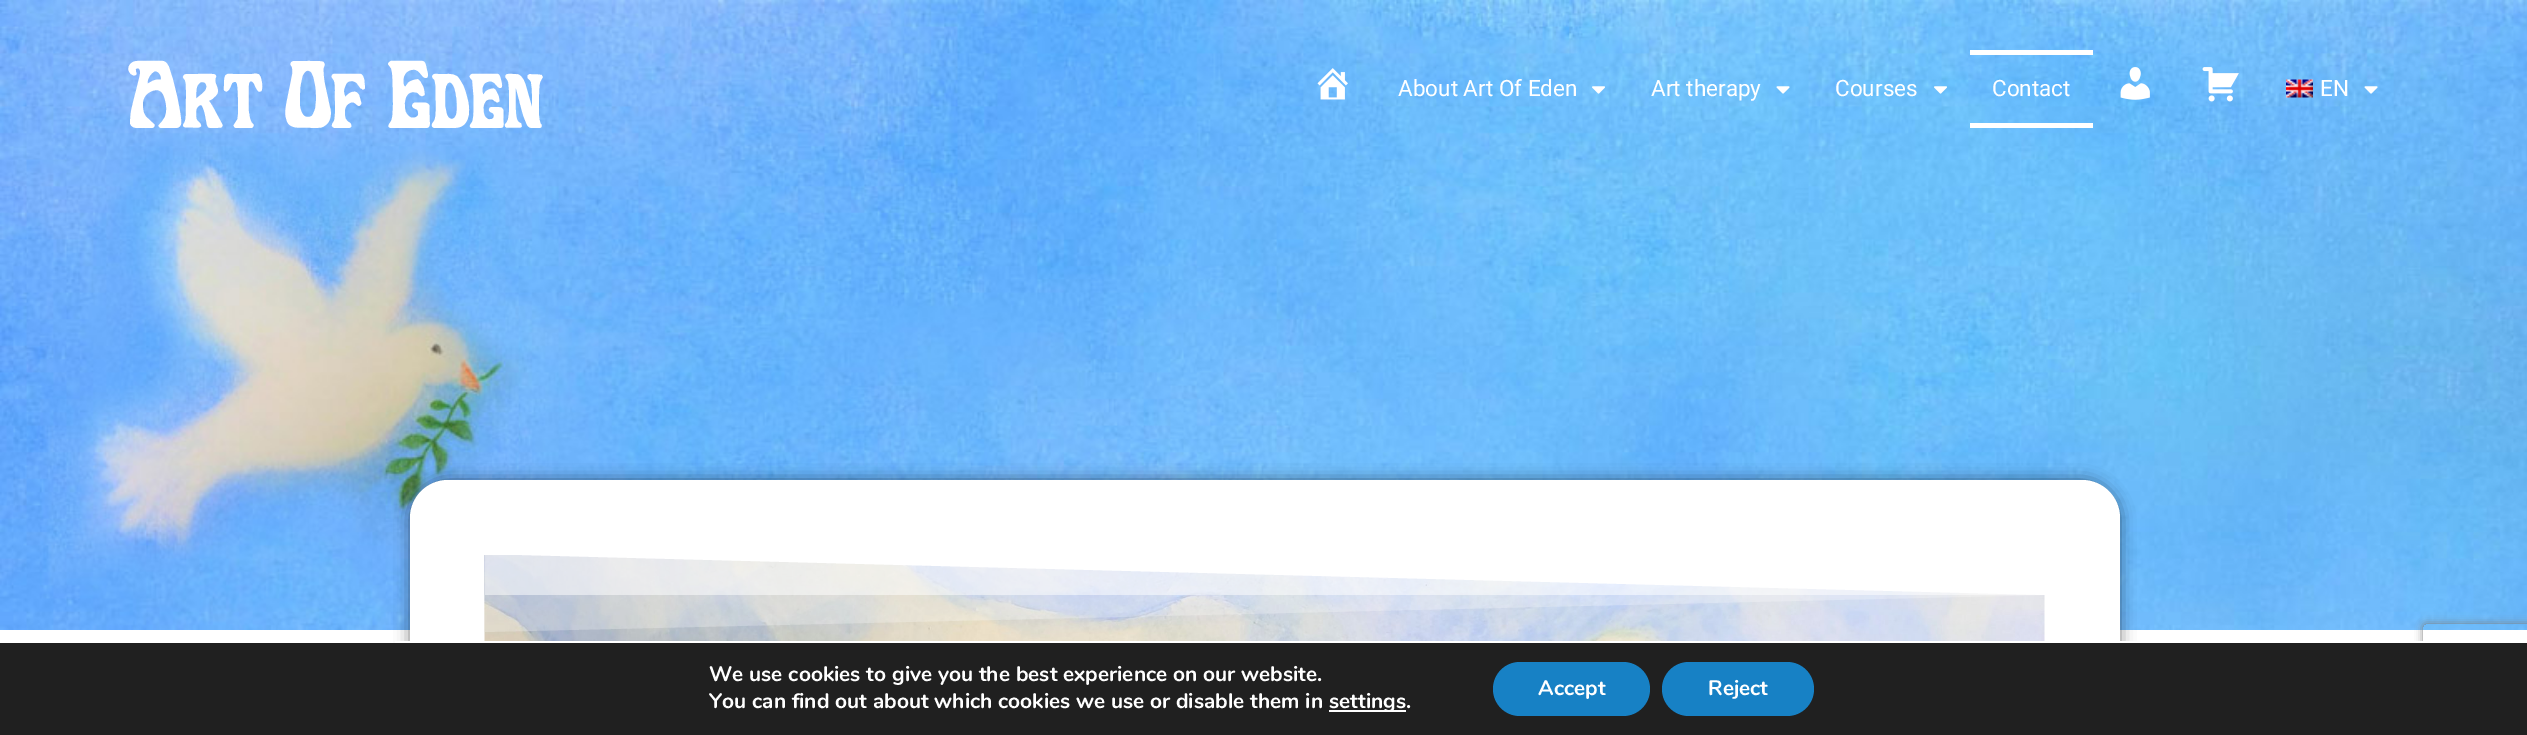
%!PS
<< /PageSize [2527 735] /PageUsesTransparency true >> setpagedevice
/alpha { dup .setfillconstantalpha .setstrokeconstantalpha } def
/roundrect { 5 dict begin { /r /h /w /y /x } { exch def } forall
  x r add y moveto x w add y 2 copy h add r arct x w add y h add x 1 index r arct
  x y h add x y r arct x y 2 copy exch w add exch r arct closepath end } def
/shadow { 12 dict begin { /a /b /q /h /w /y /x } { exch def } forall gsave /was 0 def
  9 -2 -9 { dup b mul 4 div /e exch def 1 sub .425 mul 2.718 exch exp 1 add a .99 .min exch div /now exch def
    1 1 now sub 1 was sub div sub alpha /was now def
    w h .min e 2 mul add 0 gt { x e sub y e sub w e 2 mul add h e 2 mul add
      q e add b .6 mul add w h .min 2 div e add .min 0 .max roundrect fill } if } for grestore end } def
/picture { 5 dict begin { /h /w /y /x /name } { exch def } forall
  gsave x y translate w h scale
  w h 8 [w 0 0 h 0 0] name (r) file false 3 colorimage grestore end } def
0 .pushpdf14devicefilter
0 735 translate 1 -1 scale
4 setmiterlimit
1 setgray
0 0 2527 735 rectfill
(img1.rgb) 0 0 2527 630 picture
/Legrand-Bold [96 0 0 -96 0 0] selectfont
126 128 moveto (Art Of Eden) show
(img2.rgb) 1317 68 31 32 picture
/Roboto-Regular [22.5 0 0 -22.5 0 0] selectfont
1398 96 moveto (About Art Of Eden) show
(img3.rgb) 1592 86 13 8 picture
1651 96 moveto (Art therapy) show
(img4.rgb) 1776 86 14 8 picture
1835 96 moveto (Courses) show
(img5.rgb) 1934 86 13 8 picture
1970 50 123 5 rectfill
1992 96 moveto (Contact) show
1970 123 123 5 rectfill
(img6.rgb) 2120 67 30 33 picture
(img7.rgb) 2202 67 37 35 picture
(img8.rgb) 2286 79 27 19 picture
2320 96 moveto (EN) show
(img9.rgb) 2364 86 14 8 picture
0 setgray
410 480 1710 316 38 7.5 0.5 shadow
1 setgray
410 480 1710 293 38 roundrect fill
(img10.rgb) 484 555 1561 86 picture
newpath 484 554 moveto 2045 554 lineto 2045 595 lineto closepath fill
0.5 alpha
485 555 1553 40 rectfill
gsave
485 554 1560 79 rectclip
0.25 alpha
newpath 2045 554 moveto 484 554 lineto 484 632 lineto 2045 595 lineto closepath fill
grestore
gsave
newpath 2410 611 moveto 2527 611 lineto 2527 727 lineto 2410 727 lineto closepath 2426 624 moveto 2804 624 lineto 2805.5 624 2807 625.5 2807 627 curveto 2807 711 lineto 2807 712.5 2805.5 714 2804 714 curveto 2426 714 lineto 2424.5 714 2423 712.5 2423 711 curveto 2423 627 lineto 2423 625.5 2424.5 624 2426 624 curveto closepath eoclip newpath
1 alpha
0.502 setgray
2423 624 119 90 3 4 1 shadow
grestore
1 alpha
0.125 setgray
0 643 2527 92 rectfill
1 setgray
395 641 2028 2 rectfill
/Nunito-Bold [21 0 0 -21 0 0] selectfont
709 681 moveto (We use cookies to give you the best experience on our website.) show
709 708 moveto (You can find out about which cookies we use or disable them in) show
1329 710 77 2 rectfill
1329 708 moveto (settings.) show
0.09 0.506 0.773 setrgbcolor
1493 662 157 54 27 roundrect fill
1 setgray
1538 695 moveto (Accept) show
0.09 0.506 0.773 setrgbcolor
1662 662 152 54 27 roundrect fill
1 setgray
1708 695 moveto (Reject) show
.poppdf14devicefilter showpage
